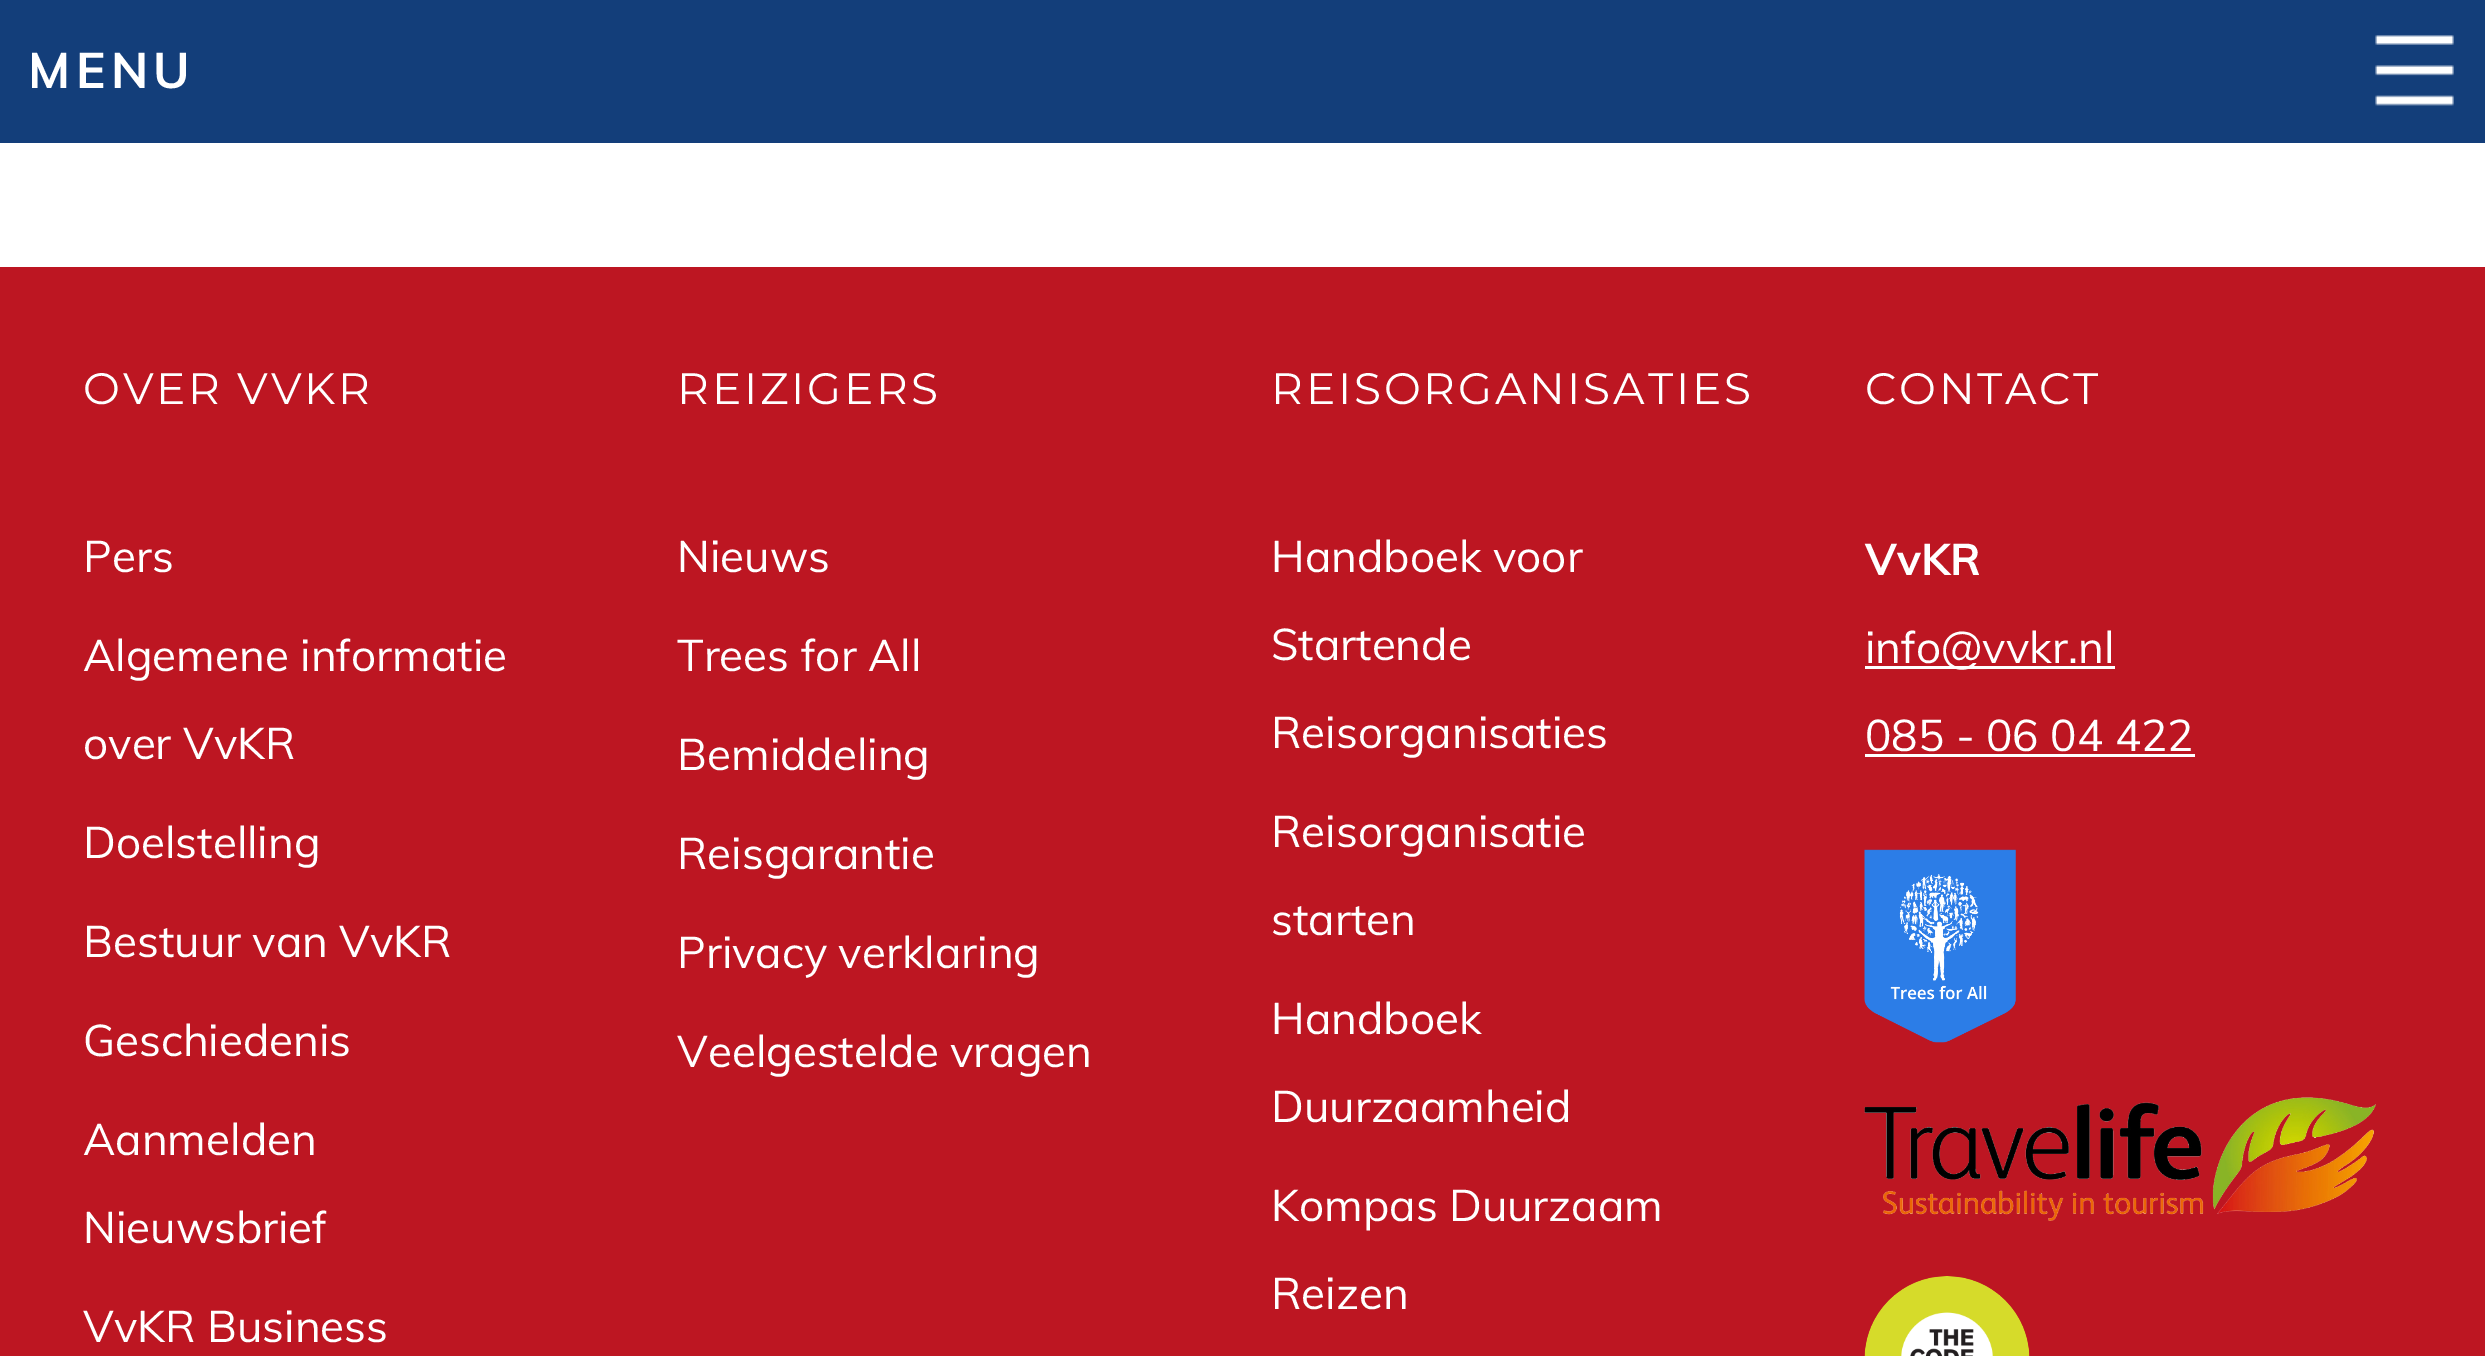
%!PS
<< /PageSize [2485 1356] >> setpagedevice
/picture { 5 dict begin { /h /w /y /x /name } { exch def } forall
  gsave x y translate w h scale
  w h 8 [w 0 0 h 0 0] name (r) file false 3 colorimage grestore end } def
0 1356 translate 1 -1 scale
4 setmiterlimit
1 setgray
0 0 2485 1356 rectfill
0.075 0.243 0.478 setrgbcolor
0 0 2485 143 rectfill
(img1.rgb) 2375 35 79 71 picture
/Muli-Bold [49.5 0 0 -49.5 0 0] selectfont
1 setgray
28 88 moveto 5.5 0 (MENU) ashow
0.741 0.086 0.133 setrgbcolor
0 267 2485 1089 rectfill
/Montserrat-Regular [44 0 0 -44 0 0] selectfont
1 setgray
83 404 moveto 2.75 0 (OVER VVKR) ashow
/Muli-Regular [44 0 0 -44 0 0] selectfont
83 572 moveto (Pers) show
83 671 moveto (Algemene informatie) show
83 759 moveto (over VvKR) show
83 858 moveto (Doelstelling) show
83 957 moveto (Bestuur van VvKR) show
83 1056 moveto (Geschiedenis) show
83 1155 moveto (Aanmelden) show
83 1243 moveto (Nieuwsbrief) show
83 1342 moveto (VvKR Business) show
/Montserrat-Regular [44 0 0 -44 0 0] selectfont
677 404 moveto 2.75 0 (REIZIGERS) ashow
/Muli-Regular [44 0 0 -44 0 0] selectfont
677 572 moveto (Nieuws) show
677 671 moveto (Trees for All) show
677 770 moveto (Bemiddeling) show
677 869 moveto (Reisgarantie) show
677 968 moveto (Privacy verklaring) show
677 1067 moveto (Veelgestelde vragen) show
/Montserrat-Regular [44 0 0 -44 0 0] selectfont
1271 404 moveto 2.75 0 (REISORGANISATIES) ashow
/Muli-Regular [44 0 0 -44 0 0] selectfont
1271 572 moveto (Handboek voor) show
1271 660 moveto (Startende) show
1271 748 moveto (Reisorganisaties) show
1271 847 moveto (Reisorganisatie) show
1271 935 moveto (starten) show
1271 1034 moveto (Handboek) show
1271 1122 moveto (Duurzaamheid) show
1271 1221 moveto (Kompas Duurzaam) show
1271 1309 moveto (Reizen) show
/Montserrat-Regular [44 0 0 -44 0 0] selectfont
1865 404 moveto 2.75 0 (CONTACT) ashow
/Muli-Bold [44 0 0 -44 0 0] selectfont
1865 575 moveto (VvKR) show
1865 666 250 3 rectfill
/Muli-Regular [44 0 0 -44 0 0] selectfont
1865 663 moveto (info@vvkr.nl) show
1865 751 moveto (085 - 06 04 422) show
1865 754 330 3 rectfill
(img2.rgb) 1864 849 152 194 picture
(img3.rgb) 1864 1097 512 124 picture
(img4.rgb) 1864 1276 166 80 picture
showpage
